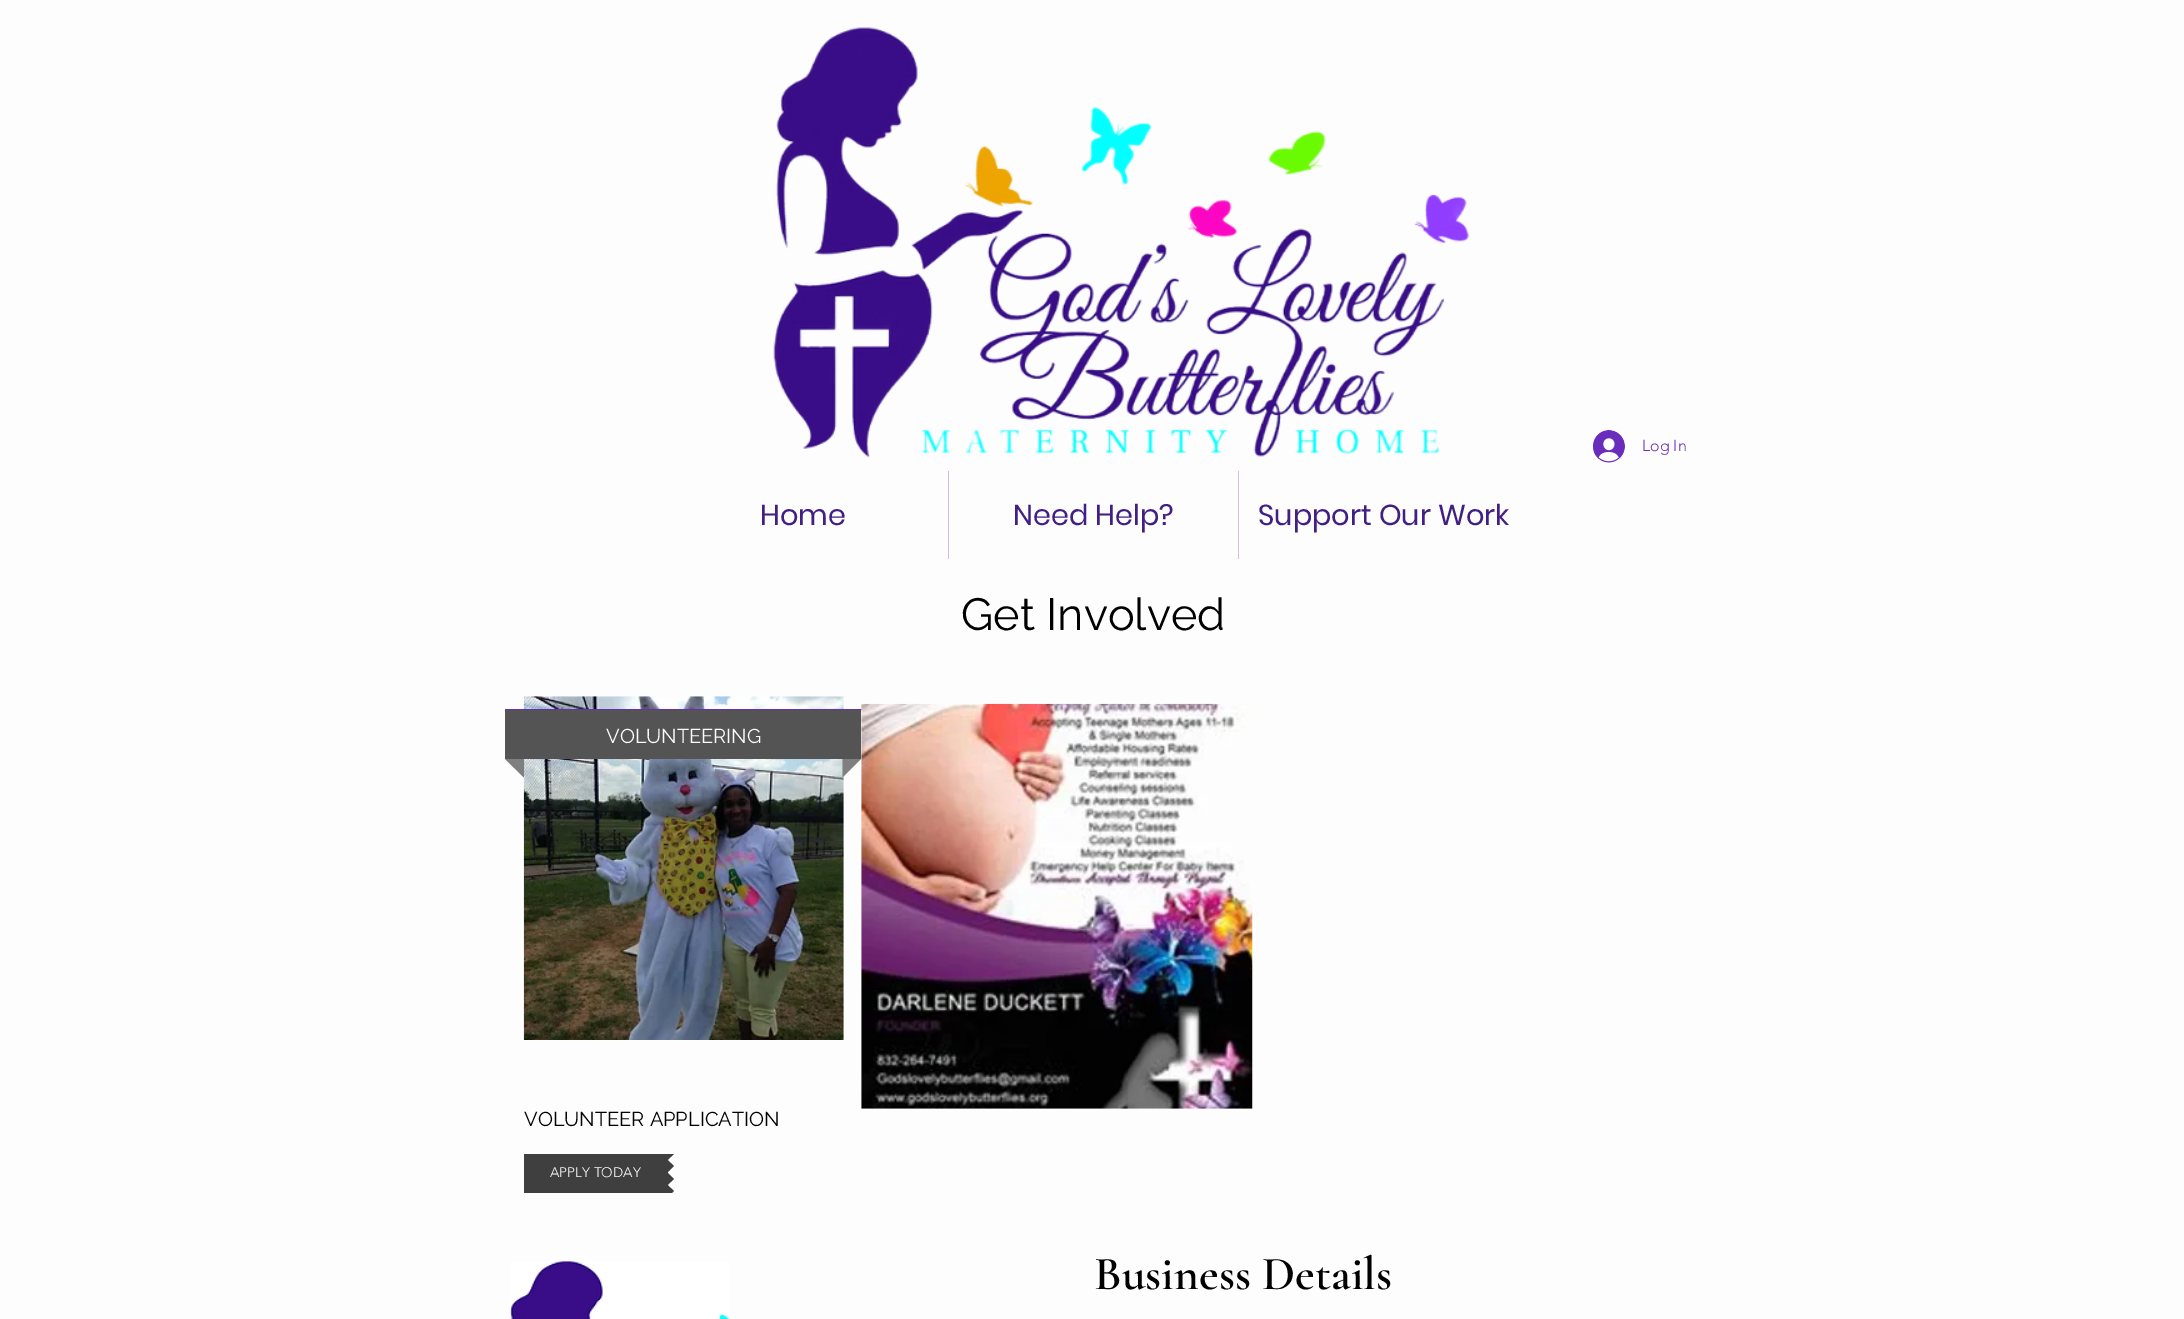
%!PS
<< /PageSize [2184 1319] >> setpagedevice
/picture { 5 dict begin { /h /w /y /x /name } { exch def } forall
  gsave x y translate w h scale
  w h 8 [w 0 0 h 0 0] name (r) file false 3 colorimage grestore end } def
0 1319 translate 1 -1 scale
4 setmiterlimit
0.992 0.992 0.996 setrgbcolor
0 0 2184 1319 rectfill
(img1.rgb) 773 27 696 431 picture
(img2.rgb) 1593 430 32 33 picture
/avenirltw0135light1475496-Light [16 0 0 -16 0 0] selectfont
0.416 0.176 0.733 setrgbcolor
1642 451 moveto (Log In) show
/Poppins-Regular [28.75 0 0 -28.75 0 0] selectfont
0.259 0.122 0.514 setrgbcolor
760 525 moveto (Home) show
0.847 0.741 0.886 setrgbcolor
948 471 1 88 rectfill
0.259 0.122 0.514 setrgbcolor
1013 525 moveto (Need Help?) show
0.847 0.741 0.886 setrgbcolor
1238 471 1 88 rectfill
0.259 0.122 0.514 setrgbcolor
1258 525 moveto (Support Our Work) show
/Raleway-Regular [45 0 0 -45 0 0] selectfont
0 setgray
961 630 moveto (Get Involved) show
(img3.rgb) 523 696 321 344 picture
0.329 setgray
505 709 356 50 rectfill
0.416 0.176 0.733 setrgbcolor
506 709 357 1 rectfill
(img4.rgb) 861 703 392 406 picture
/Raleway-Regular [20 0 0 -20 0 0] selectfont
0.992 0.992 0.996 setrgbcolor
606 743 moveto (VOLUNTEERING) show
0.498 setgray
newpath 505 759 moveto 524 759 lineto 524 777.5 lineto closepath fill
newpath 842.5 759 moveto 861 759 lineto 842.5 777.5 lineto closepath fill
0 setgray
524 1126 moveto (VOLUNTEER APPLICATION) show
0.247 0.247 0.251 setrgbcolor
524 1154 144 39 rectfill
/avenirltw0135light1475496-Light [13.75 0 0 -13.75 0 0] selectfont
0.992 0.992 0.996 setrgbcolor
550 1177 moveto (APPLY TODAY) show
gsave
668 1154 6 39 rectclip
0.247 0.247 0.251 setrgbcolor
newpath 667.5 1160 moveto 667.5 1147.5 lineto 674 1154 lineto closepath 667.5 1172.5 moveto 667.5 1160 lineto 674 1166 lineto closepath 667.5 1185 moveto 667.5 1172.5 lineto 674 1179 lineto closepath 667.5 1197.5 moveto 667.5 1185 lineto 674 1191 lineto closepath fill
grestore
(img5.rgb) 510 1261 220 58 picture
/CormorantGaramond-SemiBold [47.5 0 0 -47.5 0 0] selectfont
0 setgray
1094 1289 moveto (Business Details) show
showpage
